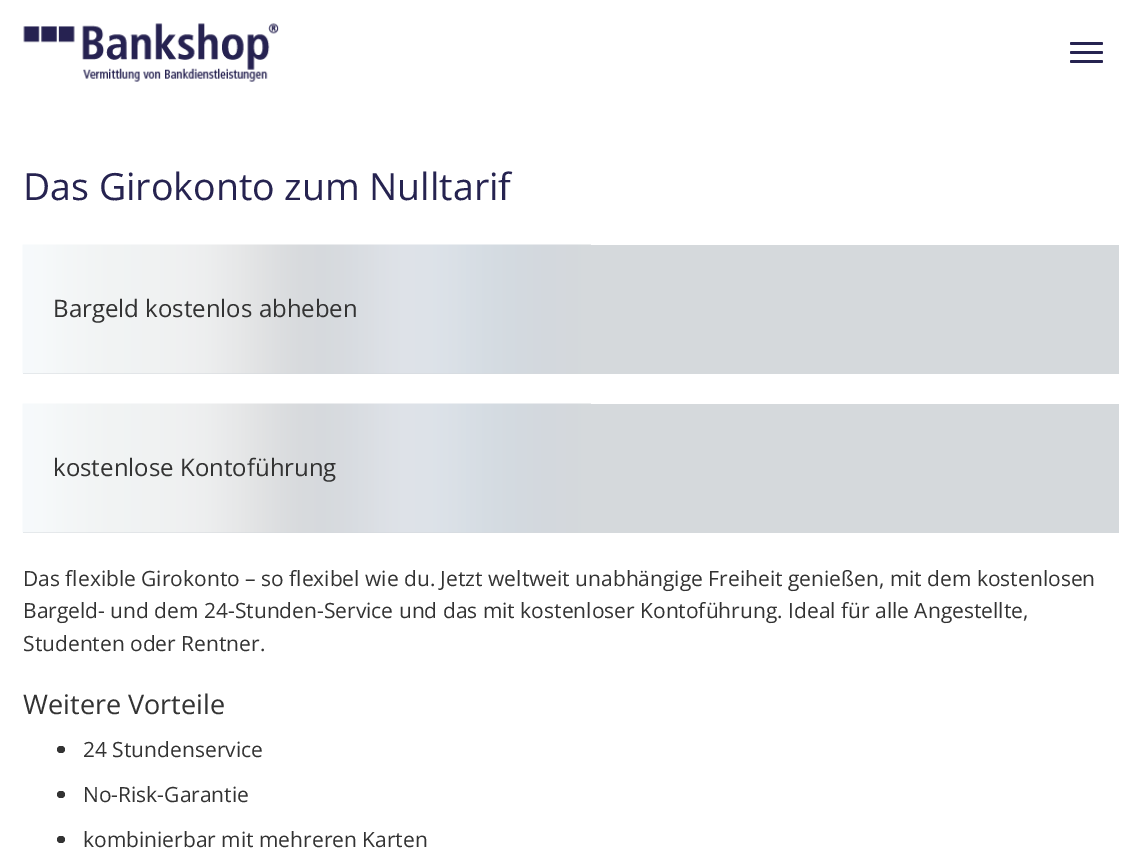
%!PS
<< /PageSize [1141 868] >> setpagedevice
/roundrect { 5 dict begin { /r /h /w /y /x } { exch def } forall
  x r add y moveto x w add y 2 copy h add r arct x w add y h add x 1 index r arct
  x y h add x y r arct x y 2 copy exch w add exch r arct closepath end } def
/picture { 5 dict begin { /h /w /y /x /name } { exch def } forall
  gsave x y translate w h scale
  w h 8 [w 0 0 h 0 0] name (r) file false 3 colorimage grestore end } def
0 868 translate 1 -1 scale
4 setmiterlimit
1 setgray
0 0 1141 868 rectfill
(img1.rgb) 23 23 256 59 picture
0.149 0.137 0.314 setrgbcolor
1070 42 33 3 1.5 roundrect fill
1070 51 33 3 1.5 roundrect fill
1070 60 33 3 1.5 roundrect fill
/OpenSans-Regular [37.5 0 0 -37.5 0 0] selectfont
23 200 moveto (Das Girokonto zum Nulltarif) show
0.835 0.851 0.863 setrgbcolor
23 245 1096 129 rectfill
(img2.rgb) 22 244 569 130 picture
/OpenSans-Regular [24 0 0 -24 0 0] selectfont
0.2 setgray
53 317 moveto (Bargeld kostenlos abheben) show
0.835 0.851 0.863 setrgbcolor
23 404 1096 129 rectfill
(img2.rgb) 22 403 569 130 picture
0.2 setgray
53 476 moveto (kostenlose Kontoführung) show
/OpenSans-Regular [21 0 0 -21 0 0] selectfont
23 586 moveto (Das flexible Girokonto – so flexibel wie du. Jetzt weltweit unabhängige Freiheit genießen, mit dem kostenlosen) show
23 618 moveto (Bargeld- und dem 24-Stunden-Service und das mit kostenloser Kontoführung. Ideal für alle Angestellte,) show
23 651 moveto (Studenten oder Rentner.) show
/OpenSans-Regular [27 0 0 -27 0 0] selectfont
23 714 moveto (Weitere Vorteile) show
57 746 8 7 3.5 roundrect fill
/OpenSans-Regular [21 0 0 -21 0 0] selectfont
83 757 moveto (24 Stundenservice) show
57 791 8 7 3.5 roundrect fill
83 802 moveto (No-Risk-Garantie) show
57 836 8 7 3.5 roundrect fill
83 847 moveto (kombinierbar mit mehreren Karten) show
showpage
